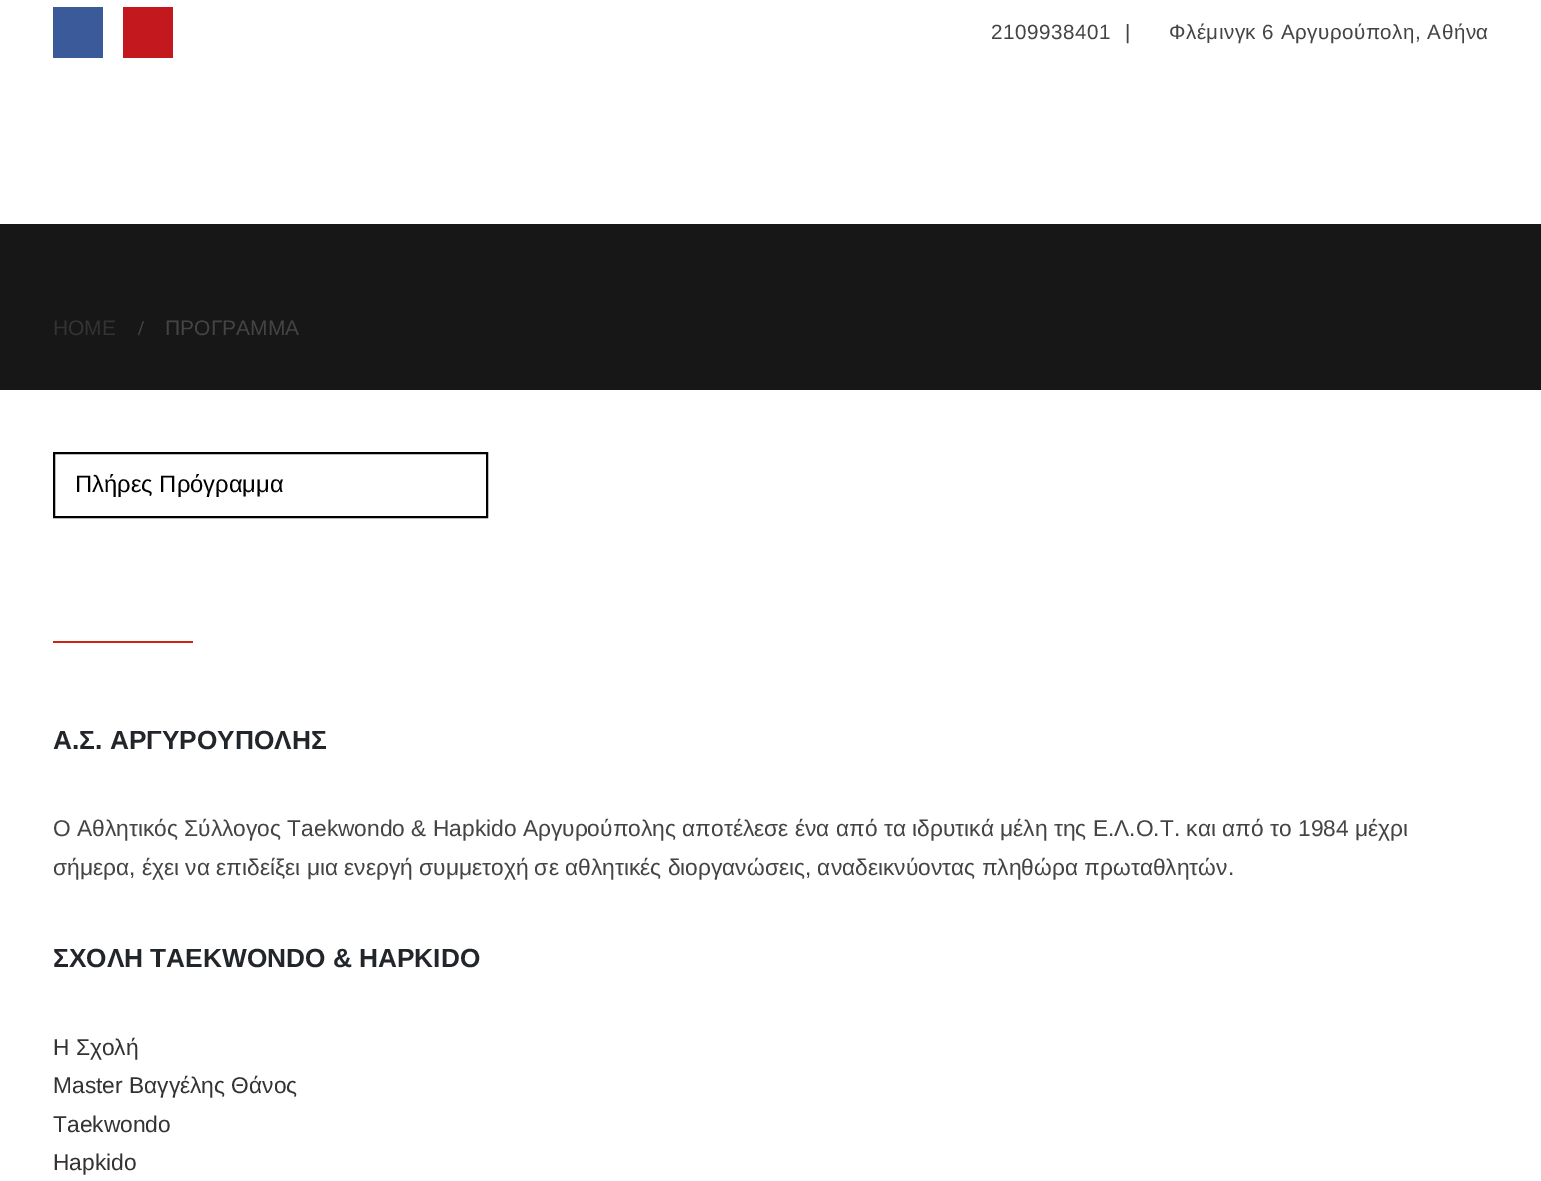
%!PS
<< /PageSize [1541 1181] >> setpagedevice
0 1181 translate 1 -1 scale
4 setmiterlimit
1 setgray
0 0 1541 1181 rectfill
0.231 0.353 0.604 setrgbcolor
53 7 50 51 rectfill
0.765 0.098 0.118 setrgbcolor
123 7 50 51 rectfill
/LiberationSans-Regular [20.6 0 0 -20.6 0 0] selectfont
0.267 setgray
991 39 moveto 0.5 0 (2109938401) ashow
1125 39 moveto 0.5 0 (|) ashow
1169 39 moveto 0.5 0 (Φλέμινγκ 6 Αργυρούπολη, Αθήνα) ashow
0.09 setgray
0 224 1541 166 rectfill
/LiberationSans-Regular [21 0 0 -21 0 0] selectfont
0.2 setgray
53 335 moveto (HOME) show
/LiberationSerif-Bold [21 0 0 -21 0 0] selectfont
0.267 setgray
138 335 moveto (/) show
/LiberationSans-Regular [21 0 0 -21 0 0] selectfont
165 335 moveto (ΠΡΟΓΡΑΜΜΑ) show
0 setgray
2 setlinewidth
54 453 433 64 rectstroke
/LiberationSans-Regular [23.75 0 0 -23.75 0 0] selectfont
75 492 moveto (Πλήρες Πρόγραμμα) show
0.808 0.145 0.071 setrgbcolor
53 641 140 2 rectfill
/LiberationSans-Bold [26.25 0 0 -26.25 0 0] selectfont
0.133 0.145 0.161 setrgbcolor
53 749 moveto (Α.Σ. ΑΡΓΥΡΟΥΠΟΛΗΣ) show
/LiberationSans-Regular [22.75 0 0 -22.75 0 0] selectfont
0.267 setgray
53 836 moveto (Ο Αθλητικός Σύλλογος Taekwondo & Hapkido Αργυρούπολης αποτέλεσε ένα από τα ιδρυτικά μέλη της Ε.Λ.Ο.Τ. και από το 1984 μέχρι) show
53 875 moveto (σήμερα, έχει να επιδείξει μια ενεργή συμμετοχή σε αθλητικές διοργανώσεις, αναδεικνύοντας πληθώρα πρωταθλητών.) show
/LiberationSans-Bold [26.25 0 0 -26.25 0 0] selectfont
0.133 0.145 0.161 setrgbcolor
53 967 moveto (ΣΧΟΛΗ TAEKWONDO & HAPKIDO) show
/LiberationSans-Regular [22.75 0 0 -22.75 0 0] selectfont
0.2 setgray
53 1055 moveto (Η Σχολή) show
53 1093 moveto (Master Βαγγέλης Θάνος) show
53 1132 moveto (Taekwondo) show
53 1170 moveto (Hapkido) show
showpage
